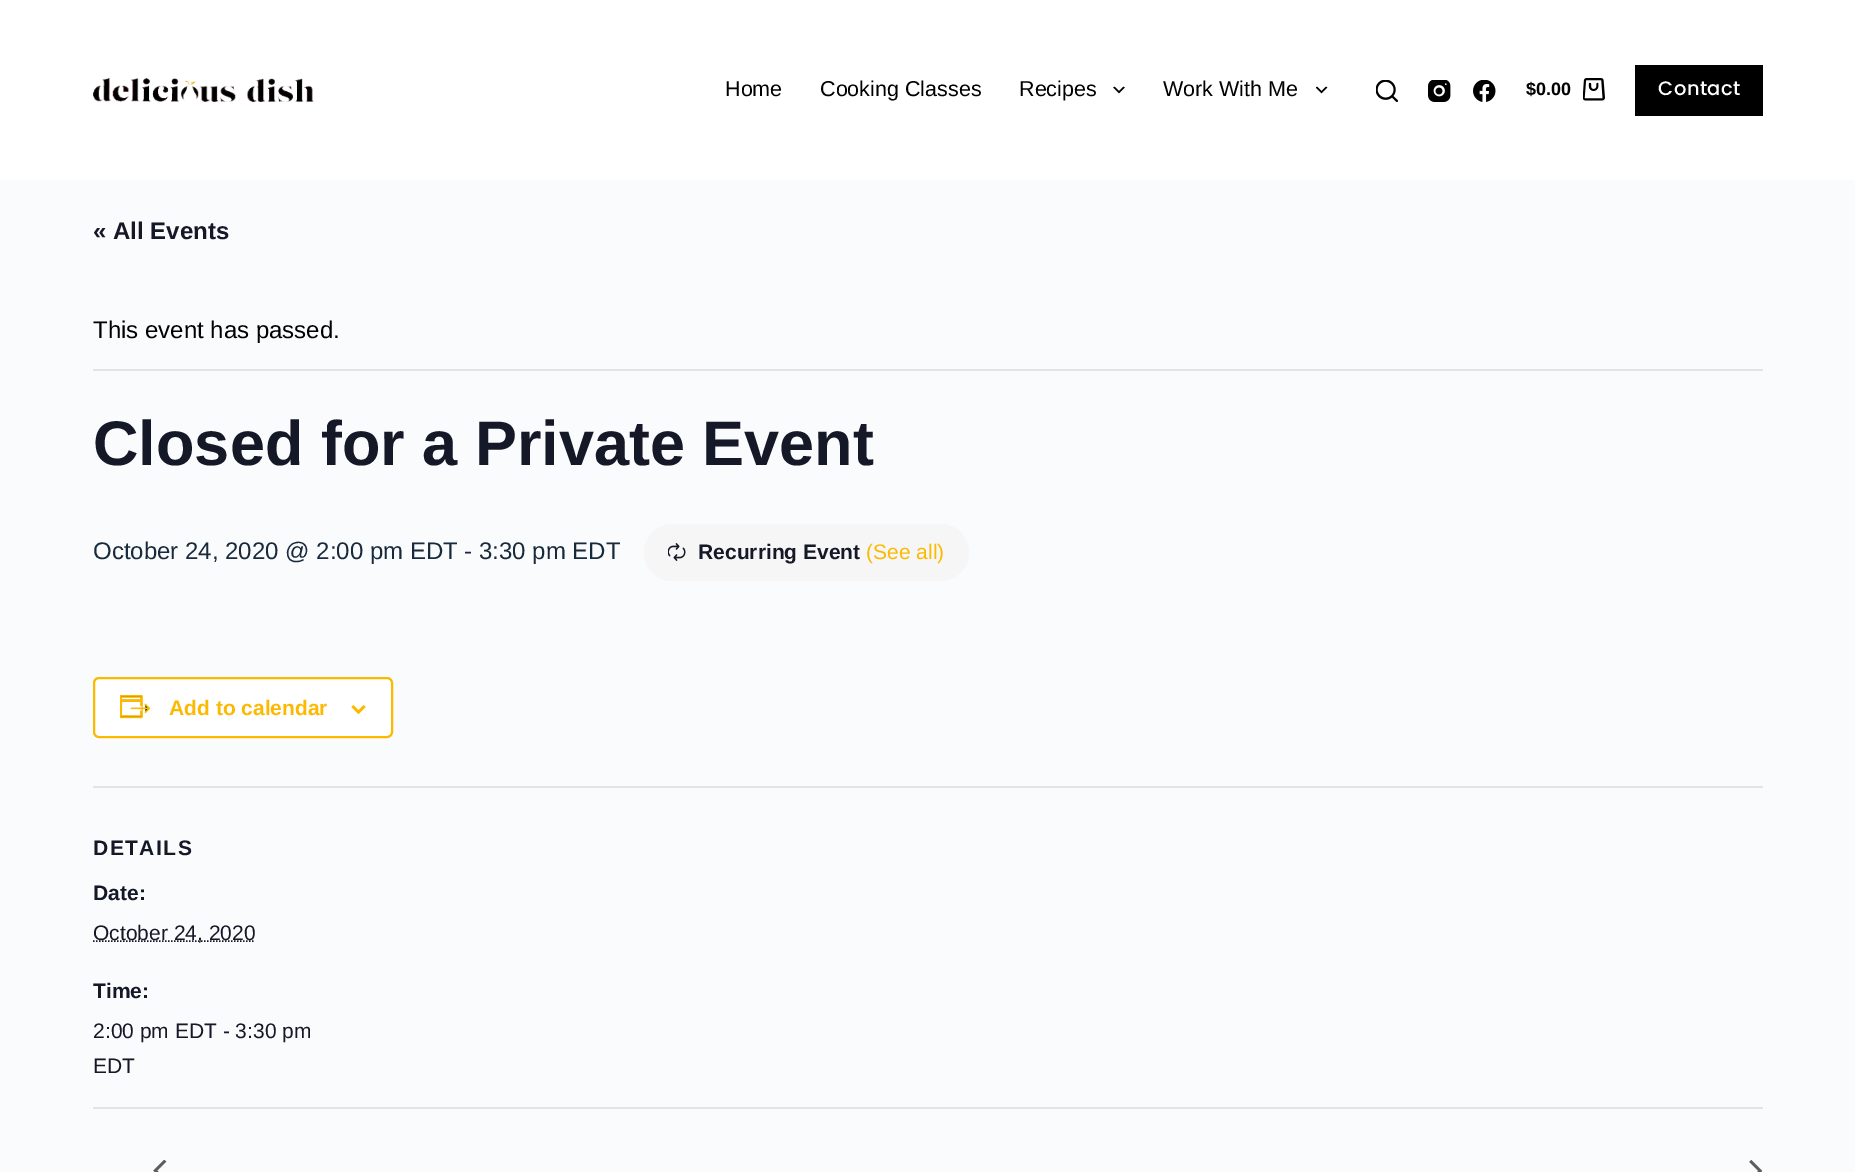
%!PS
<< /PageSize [1855 1172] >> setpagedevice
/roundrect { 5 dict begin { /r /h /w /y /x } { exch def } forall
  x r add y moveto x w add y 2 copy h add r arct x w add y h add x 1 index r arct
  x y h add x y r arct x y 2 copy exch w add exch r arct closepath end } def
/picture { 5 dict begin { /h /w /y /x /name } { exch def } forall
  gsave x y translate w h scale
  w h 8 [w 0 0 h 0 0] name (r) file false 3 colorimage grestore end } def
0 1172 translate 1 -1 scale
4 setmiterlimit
0.98 0.984 0.988 setrgbcolor
0 0 1855 1172 rectfill
1 setgray
0 0 1855 180 rectfill
(img1.rgb) 93 78 222 24 picture
/LiberationSans-Regular [21.5 0 0 -21.5 0 0] selectfont
0 setgray
725 96 moveto (Home) show
820 96 moveto (Cooking Classes) show
1019 96 moveto (Recipes) show
(img2.rgb) 1113 86 12 8 picture
1163 96 moveto (Work With Me) show
(img3.rgb) 1316 86 12 8 picture
(img4.rgb) 1376 80 22 22 picture
(img5.rgb) 1428 80 23 22 picture
(img6.rgb) 1473 80 23 22 picture
/LiberationSans-Bold [18 0 0 -18 0 0] selectfont
1526 95 moveto ($0.00) show
(img7.rgb) 1583 78 22 23 picture
1635 65 128 51 rectfill
/Poppins-Medium [19.5 0 0 -19.5 0 0] selectfont
1 setgray
1658 95 moveto 0.5 0 (Contact) ashow
/LiberationSans-Bold [24 0 0 -24 0 0] selectfont
0.078 0.094 0.153 setrgbcolor
93 239 moveto (« All Events) show
0.894 setgray
93 369 1670 2 rectfill
/LiberationSans-Regular [24 0 0 -24 0 0] selectfont
0 setgray
93 338 moveto (This event has passed.) show
/LiberationSans-Bold [63 0 0 -63 0 0] selectfont
0.078 0.094 0.153 setrgbcolor
93 465 moveto (Closed for a Private Event) show
/LiberationSans-Regular [24 0 0 -24 0 0] selectfont
0.098 0.165 0.239 setrgbcolor
93 559 moveto (October 24, 2020 @ 2:00 pm EDT - 3:30 pm EDT) show
0.969 0.965 0.965 setrgbcolor
644 524 325 57 28.5 roundrect fill
(img8.rgb) 668 543 18 18 picture
/LiberationSans-Bold [21 0 0 -21 0 0] selectfont
0.078 0.094 0.153 setrgbcolor
698 559 moveto (Recurring Event) show
/LiberationSans-Regular [21 0 0 -21 0 0] selectfont
0.988 0.725 0 setrgbcolor
866 559 moveto (\(See all\)) show
1 setgray
94 678 298 59 5 roundrect gsave fill grestore
0.988 0.725 0 setrgbcolor
2 setlinewidth
stroke
(img9.rgb) 120 695 31 24 picture
/LiberationSans-Bold [21 0 0 -21 0 0] selectfont
169 715 moveto (Add to calendar) show
(img10.rgb) 351 705 15 9 picture
0.894 setgray
93 786 1670 2 rectfill
0.078 0.094 0.153 setrgbcolor
93 855 moveto 1.5 0 (DETAILS) ashow
93 900 moveto (Date:) show
1.5 setlinewidth
[1.5 1.5] 0 setdash
newpath 93 941 moveto 255 941 lineto stroke
/LiberationSans-Regular [21 0 0 -21 0 0] selectfont
93 940 moveto (October 24, 2020) show
/LiberationSans-Bold [21 0 0 -21 0 0] selectfont
93 998 moveto (Time:) show
/LiberationSans-Regular [21 0 0 -21 0 0] selectfont
93 1038 moveto (2:00 pm EDT - 3:30 pm) show
93 1073 moveto (EDT) show
0.894 setgray
93 1107 1670 2 rectfill
(img11.rgb) 153 1160 14 12 picture
(img12.rgb) 1749 1160 14 12 picture
showpage
